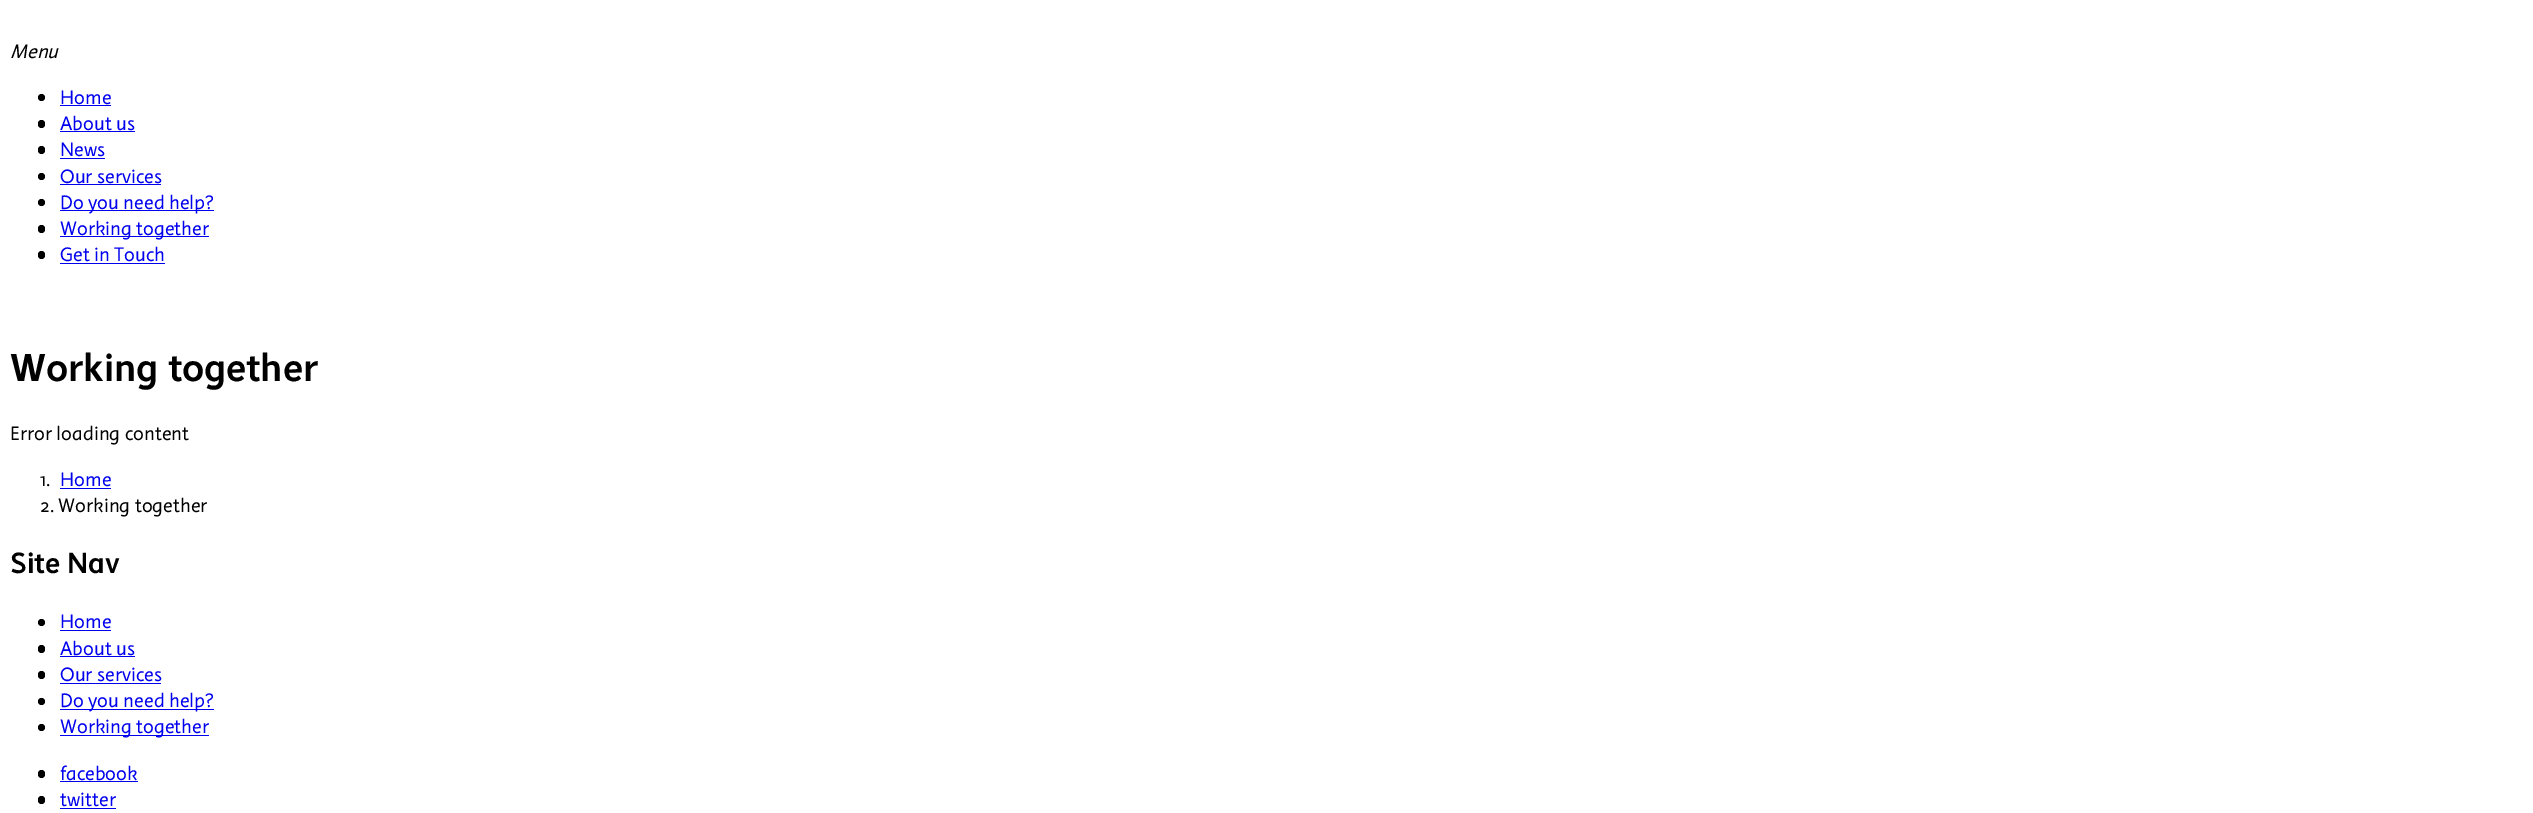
%!PS
<< /PageSize [2533 813] >> setpagedevice
/roundrect { 5 dict begin { /r /h /w /y /x } { exch def } forall
  x r add y moveto x w add y 2 copy h add r arct x w add y h add x 1 index r arct
  x y h add x y r arct x y 2 copy exch w add exch r arct closepath end } def
0 813 translate 1 -1 scale
4 setmiterlimit
1 setgray
0 0 2533 813 rectfill
/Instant-Italic [20 0 0 -20 0 0] selectfont
0 setgray
10 58 moveto (Menu) show
newpath 41.5 97.5 3.5 0 360 arc closepath fill
/Instant-Regular [20 0 0 -20 0 0] selectfont
0 0 0.933 setrgbcolor
60 104 moveto (Home) show
60 105 51 1 rectfill
0 setgray
38 120 7 8 3.5 roundrect fill
0 0 0.933 setrgbcolor
60 130 moveto (About us) show
60 131 75 1 rectfill
0 setgray
38 146 7 8 3.5 roundrect fill
0 0 0.933 setrgbcolor
60 156 moveto (News) show
60 158 45 1 rectfill
0 setgray
newpath 41.5 176.5 3.5 0 360 arc closepath fill
0 0 0.933 setrgbcolor
60 183 moveto (Our services) show
60 184 101 1 rectfill
0 setgray
newpath 41.5 202.5 3.5 0 360 arc closepath fill
0 0 0.933 setrgbcolor
60 210 154 1 rectfill
60 209 moveto (Do you need help?) show
0 setgray
38 225 7 8 3.5 roundrect fill
0 0 0.933 setrgbcolor
60 236 149 1 rectfill
60 235 moveto (Working together) show
0 setgray
38 251 7 8 3.5 roundrect fill
0 0 0.933 setrgbcolor
60 261 moveto (Get in Touch) show
60 263 105 1 rectfill
/Instant-Bold [40 0 0 -40 0 0] selectfont
0 setgray
10 381 moveto (Working together) show
/Instant-Regular [20 0 0 -20 0 0] selectfont
10 440 moveto (Error loading content) show
40 486 moveto (1.) show
0 0 0.933 setrgbcolor
60 486 moveto (Home) show
60 488 51 1 rectfill
0 setgray
40 512 moveto (2. Working together) show
/Instant-Bold [30 0 0 -30 0 0] selectfont
10 573 moveto (Site Nav) show
newpath 41.5 622.5 3.5 0 360 arc closepath fill
/Instant-Regular [20 0 0 -20 0 0] selectfont
0 0 0.933 setrgbcolor
60 628 moveto (Home) show
60 630 51 1 rectfill
0 setgray
38 645 7 8 3.5 roundrect fill
0 0 0.933 setrgbcolor
60 655 moveto (About us) show
60 656 75 1 rectfill
0 setgray
38 671 7 8 3.5 roundrect fill
0 0 0.933 setrgbcolor
60 681 moveto (Our services) show
60 683 101 1 rectfill
0 setgray
newpath 41.5 701.5 3.5 0 360 arc closepath fill
0 0 0.933 setrgbcolor
60 709 154 1 rectfill
60 707 moveto (Do you need help?) show
0 setgray
newpath 41.5 727.5 3.5 0 360 arc closepath fill
0 0 0.933 setrgbcolor
60 735 149 1 rectfill
60 733 moveto (Working together) show
0 setgray
38 770 7 8 3.5 roundrect fill
0 0 0.933 setrgbcolor
60 780 moveto (facebook) show
60 781 78 1 rectfill
0 setgray
38 796 7 8 3.5 roundrect fill
0 0 0.933 setrgbcolor
60 806 moveto (twitter) show
60 808 56 1 rectfill
showpage
